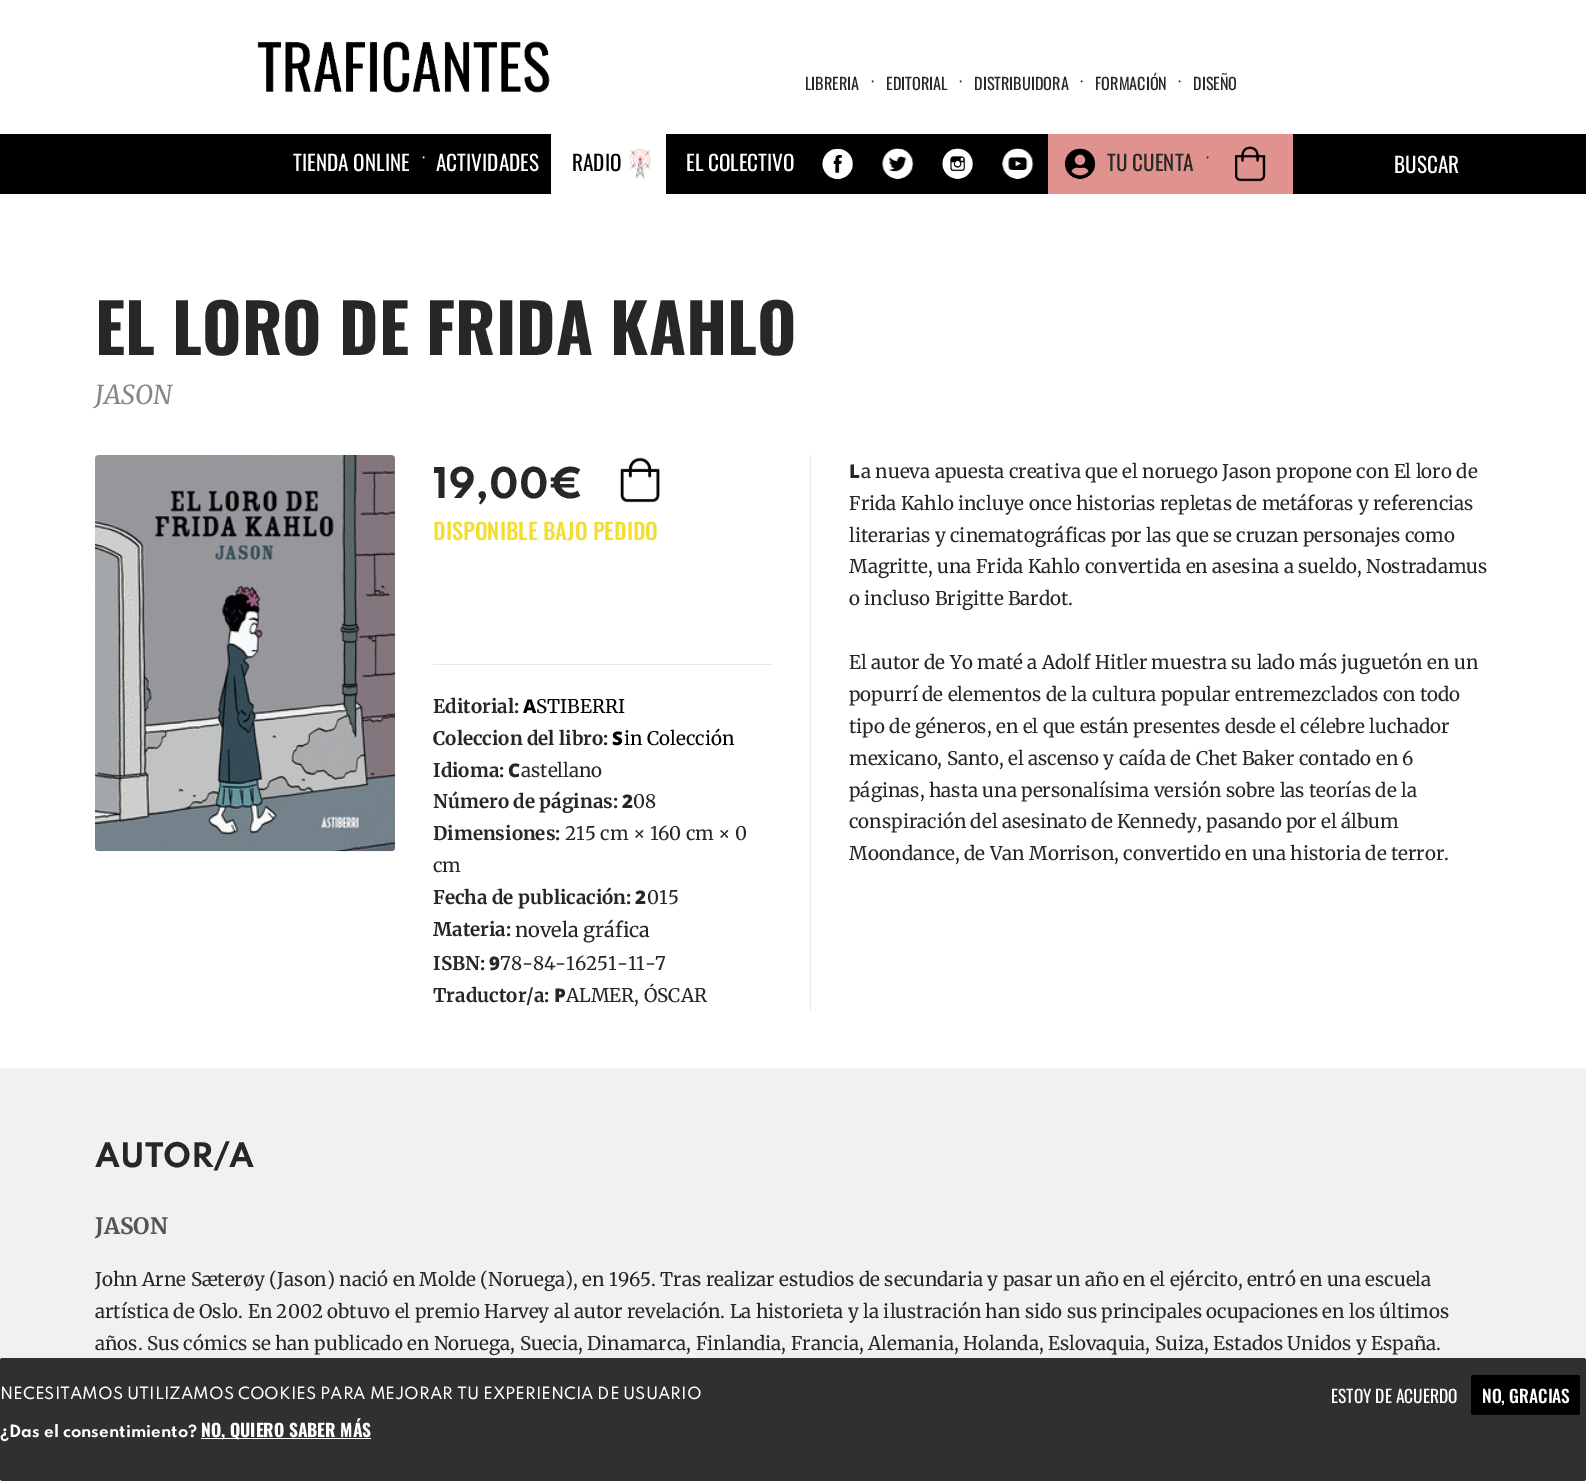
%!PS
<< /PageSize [1586 1481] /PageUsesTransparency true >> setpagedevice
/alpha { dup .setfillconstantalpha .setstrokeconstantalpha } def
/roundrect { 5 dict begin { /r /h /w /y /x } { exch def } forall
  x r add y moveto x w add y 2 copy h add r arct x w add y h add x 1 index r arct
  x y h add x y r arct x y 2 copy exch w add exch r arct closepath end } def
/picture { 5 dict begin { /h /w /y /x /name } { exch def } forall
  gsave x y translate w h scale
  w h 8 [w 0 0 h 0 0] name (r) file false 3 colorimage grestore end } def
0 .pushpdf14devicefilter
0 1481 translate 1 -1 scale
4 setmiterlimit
1 setgray
0 0 1586 1481 rectfill
(img1.rgb) 257 41 293 52 picture
0 setgray
0 134 1586 60 rectfill
/Oswald-Regular [16.25 0 0 -16.25 0 0] selectfont
0.153 setgray
805 90 moveto (LIBRERIA) show
/Merriweather-Light [16.25 0 0 -16.25 0 0] selectfont
872 88 moveto (·) show
/Oswald-Regular [16.25 0 0 -16.25 0 0] selectfont
886 90 moveto (EDITORIAL) show
/Merriweather-Light [16.25 0 0 -16.25 0 0] selectfont
960 88 moveto (·) show
/Oswald-Regular [16.25 0 0 -16.25 0 0] selectfont
974 90 moveto (DISTRIBUIDORA) show
/Merriweather-Light [16.25 0 0 -16.25 0 0] selectfont
1081 88 moveto (·) show
/Oswald-Regular [16.25 0 0 -16.25 0 0] selectfont
1095 90 moveto (FORMACIÓN) show
/Merriweather-Light [16.25 0 0 -16.25 0 0] selectfont
1179 88 moveto (·) show
/Oswald-Regular [16.25 0 0 -16.25 0 0] selectfont
1193 90 moveto (DISEÑO) show
/Oswald-Regular [21.25 0 0 -21.25 0 0] selectfont
1 setgray
293 171 moveto (TIENDA ONLINE) show
/Merriweather-Light [16.25 0 0 -16.25 0 0] selectfont
423 164 moveto (·) show
/Oswald-Regular [21.25 0 0 -21.25 0 0] selectfont
436 171 moveto (ACTIVIDADES) show
551 134 115 60 rectfill
(img2.rgb) 629 148 22 31 picture
0 setgray
572 171 moveto (RADIO) show
1 setgray
686 171 moveto (EL COLECTIVO) show
(img3.rgb) 822 148 31 32 picture
(img4.rgb) 882 148 32 31 picture
(img5.rgb) 942 148 31 31 picture
(img6.rgb) 1002 148 32 31 picture
0.878 0.573 0.561 setrgbcolor
1048 134 245 60 rectfill
(img7.rgb) 1064 148 31 31 picture
0.153 setgray
1107 171 moveto (TU CUENTA) show
/Merriweather-Light [16.25 0 0 -16.25 0 0] selectfont
1207 164 moveto (·) show
(img8.rgb) 1235 146 31 36 picture
/Oswald-Regular [21.25 0 0 -21.25 0 0] selectfont
1 setgray
1394 173 moveto (BUSCAR) show
/Oswald-Bold [67.5 0 0 -67.5 0 0] selectfont
0.153 setgray
95 355 moveto (EL LORO DE FRIDA KAHLO) show
/Merriweather-Italic [26 0 0 -26 0 0] selectfont
0.525 setgray
95 404 moveto (JASON) show
(img9.rgb) 95 455 300 397 picture
/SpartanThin-Bold [37.5 0 0 -37.5 0 0] selectfont
0.153 setgray
433 498 moveto (19,00€) show
(img10.rgb) 620 457 40 46 picture
/Oswald-Medium [22.5 0 0 -22.5 0 0] selectfont
0.953 0.871 0.188 setrgbcolor
433 540 moveto (DISPONIBLE BAJO PEDIDO) show
0.918 setgray
433 664 340 1 rectfill
/Merriweather-Bold [18.75 0 0 -18.75 0 0] selectfont
0.153 setgray
433 713 moveto (Editorial:) show
/NotoSans-ExtraBold [18.75 0 0 -18.75 0 0] selectfont
0 setgray
523 713 moveto (A) show
/Merriweather-Regular [18.75 0 0 -18.75 0 0] selectfont
536 713 moveto (STIBERRI) show
/Merriweather-Bold [18.75 0 0 -18.75 0 0] selectfont
0.153 setgray
433 745 moveto (Coleccion del libro:) show
/NotoSans-Black [18.75 0 0 -18.75 0 0] selectfont
0 setgray
612 745 moveto (S) show
/Merriweather-Regular [18.75 0 0 -18.75 0 0] selectfont
624 745 moveto (in Colección) show
/Merriweather-Bold [18.75 0 0 -18.75 0 0] selectfont
0.153 setgray
433 777 moveto (Idioma:) show
/NotoSans-Black [18.75 0 0 -18.75 0 0] selectfont
508 777 moveto (C) show
/Merriweather-Regular [18.75 0 0 -18.75 0 0] selectfont
521 777 moveto (astellano) show
/Merriweather-Bold [18.75 0 0 -18.75 0 0] selectfont
433 808 moveto (Número de páginas:) show
/NotoSans-Black [18.75 0 0 -18.75 0 0] selectfont
622 808 moveto (2) show
/Merriweather-Regular [18.75 0 0 -18.75 0 0] selectfont
633 808 moveto (08) show
/Merriweather-Bold [18.75 0 0 -18.75 0 0] selectfont
433 840 moveto (Dimensiones:) show
/Merriweather-Regular [18.75 0 0 -18.75 0 0] selectfont
565 840 moveto (215 cm × 160 cm × 0) show
433 872 moveto (cm) show
/Merriweather-Bold [18.75 0 0 -18.75 0 0] selectfont
433 904 moveto (Fecha de publicación:) show
/NotoSans-Black [18.75 0 0 -18.75 0 0] selectfont
635 904 moveto (2) show
/Merriweather-Regular [18.75 0 0 -18.75 0 0] selectfont
647 904 moveto (015) show
/Merriweather-Bold [18.75 0 0 -18.75 0 0] selectfont
433 936 moveto (Materia:) show
/Merriweather-Regular [20 0 0 -20 0 0] selectfont
515 937 moveto (novela gráfica) show
/Merriweather-Bold [18.75 0 0 -18.75 0 0] selectfont
433 970 moveto (ISBN:) show
/NotoSans-Black [18.75 0 0 -18.75 0 0] selectfont
489 970 moveto (9) show
/Merriweather-Regular [18.75 0 0 -18.75 0 0] selectfont
500 970 moveto (78-84-16251-11-7) show
/Merriweather-Bold [18.75 0 0 -18.75 0 0] selectfont
433 1002 moveto (Traductor/a:) show
/NotoSans-Black [18.75 0 0 -18.75 0 0] selectfont
554 1002 moveto (P) show
/Merriweather-Regular [18.75 0 0 -18.75 0 0] selectfont
566 1002 moveto (ALMER, ÓSCAR) show
0.918 setgray
810 455 1 556 rectfill
0.153 setgray
861 478 moveto (a nueva apuesta creativa que el noruego Jason propone con El loro de) show
849 510 moveto (Frida Kahlo incluye once historias repletas de metáforas y referencias) show
849 542 moveto (literarias y cinematográficas por las que se cruzan personajes como) show
849 573 moveto (Magritte, una Frida Kahlo convertida en asesina a sueldo, Nostradamus) show
849 605 moveto (o incluso Brigitte Bardot.) show
849 669 moveto (El autor de Yo maté a Adolf Hitler muestra su lado más juguetón en un) show
849 701 moveto (popurrí de elementos de la cultura popular entremezclados con todo) show
849 733 moveto (tipo de géneros, en el que están presentes desde el célebre luchador) show
849 765 moveto (mexicano, Santo, el ascenso y caída de Chet Baker contado en 6) show
849 797 moveto (páginas, hasta una personalísima versión sobre las teorías de la) show
849 828 moveto (conspiración del asesinato de Kennedy, pasando por el álbum) show
849 860 moveto (Moondance, de Van Morrison, convertido en una historia de terror.) show
/NotoSans-Black [18.75 0 0 -18.75 0 0] selectfont
849 478 moveto (L) show
0.945 setgray
0 1068 1586 413 rectfill
/SpartanThin-Bold [30 0 0 -30 0 0] selectfont
0.153 setgray
95 1167 moveto (AUTOR/A) show
/Merriweather-Bold [22.5 0 0 -22.5 0 0] selectfont
0.329 setgray
95 1234 moveto (JASON) show
/Merriweather-Regular [18.75 0 0 -18.75 0 0] selectfont
0.153 setgray
95 1286 moveto (John Arne Sæterøy \(Jason\) nació en Molde \(Noruega\), en 1965. Tras realizar estudios de secundaria y pasar un año en el ejército, entró en una escuela) show
95 1318 moveto (artística de Oslo. En 2002 obtuvo el premio Harvey al autor revelación. La historieta y la ilustración han sido sus principales ocupaciones en los últimos) show
95 1350 moveto (años. Sus cómics se han publicado en Noruega, Suecia, Dinamarca, Finlandia, Francia, Alemania, Holanda, Eslovaquia, Suiza, Estados Unidos y España.) show
0.8 alpha
0 setgray
0 1358 1586 123 2.5 roundrect fill
/SpartanThin-Medium [15 0 0 -15 0 0] selectfont
1 alpha
1 setgray
0 1399 moveto (NECESITAMOS UTILIZAMOS COOKIES PARA MEJORAR TU EXPERIENCIA DE USUARIO) show
/SpartanThin-Bold [15 0 0 -15 0 0] selectfont
0 1437 moveto (¿Das el consentimiento?) show
201 1438 170 1 rectfill
/Oswald-Bold [17.5 0 0 -17.5 0 0] selectfont
201 1437 moveto (NO, QUIERO SABER MÁS) show
/Oswald-Regular [17.5 0 0 -17.5 0 0] selectfont
1331 1403 moveto (ESTOY DE ACUERDO) show
0 setgray
1471 1375 109 40 2.5 roundrect fill
/Oswald-Medium [17.5 0 0 -17.5 0 0] selectfont
1 setgray
1482 1403 moveto (NO, GRACIAS) show
.poppdf14devicefilter showpage
